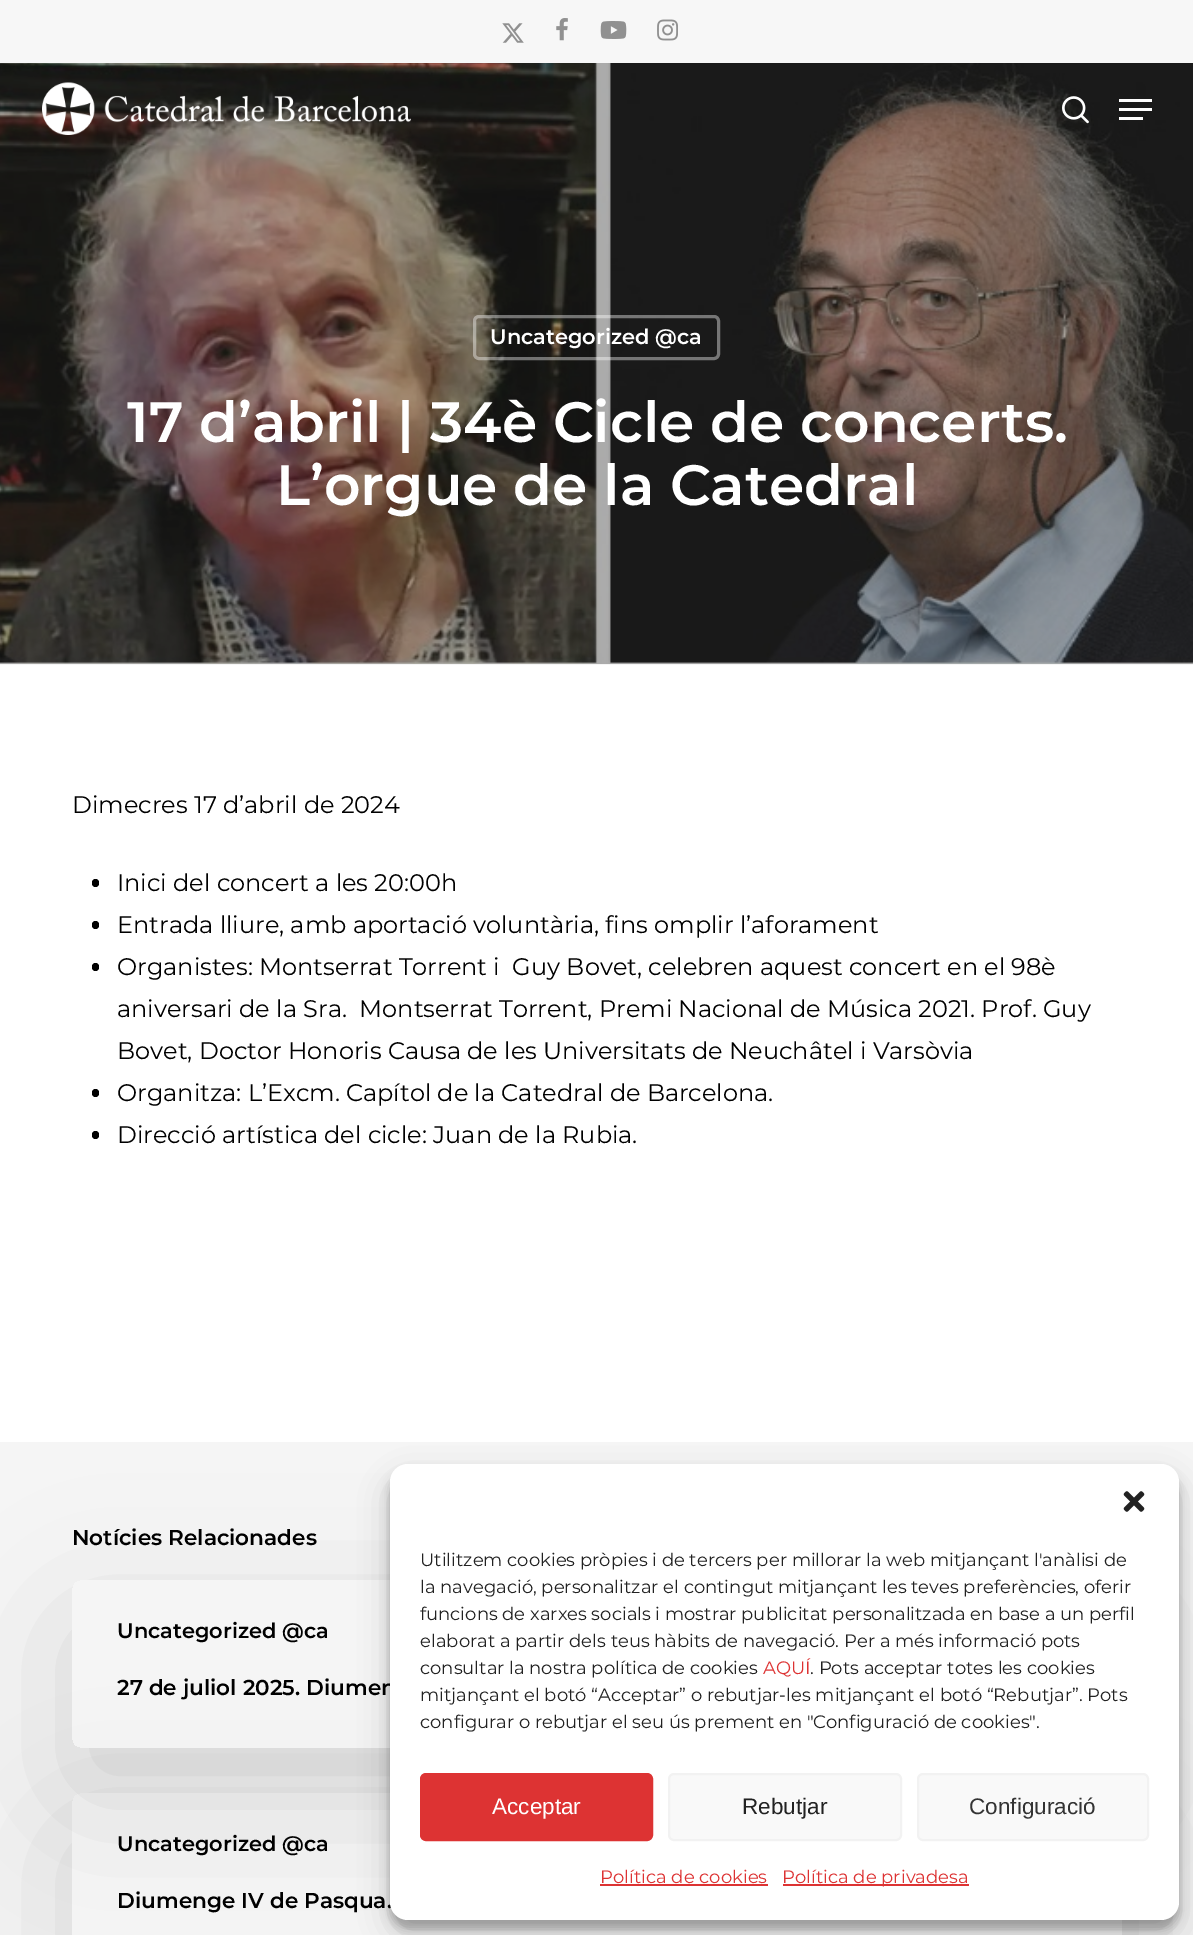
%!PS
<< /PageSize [1193 1935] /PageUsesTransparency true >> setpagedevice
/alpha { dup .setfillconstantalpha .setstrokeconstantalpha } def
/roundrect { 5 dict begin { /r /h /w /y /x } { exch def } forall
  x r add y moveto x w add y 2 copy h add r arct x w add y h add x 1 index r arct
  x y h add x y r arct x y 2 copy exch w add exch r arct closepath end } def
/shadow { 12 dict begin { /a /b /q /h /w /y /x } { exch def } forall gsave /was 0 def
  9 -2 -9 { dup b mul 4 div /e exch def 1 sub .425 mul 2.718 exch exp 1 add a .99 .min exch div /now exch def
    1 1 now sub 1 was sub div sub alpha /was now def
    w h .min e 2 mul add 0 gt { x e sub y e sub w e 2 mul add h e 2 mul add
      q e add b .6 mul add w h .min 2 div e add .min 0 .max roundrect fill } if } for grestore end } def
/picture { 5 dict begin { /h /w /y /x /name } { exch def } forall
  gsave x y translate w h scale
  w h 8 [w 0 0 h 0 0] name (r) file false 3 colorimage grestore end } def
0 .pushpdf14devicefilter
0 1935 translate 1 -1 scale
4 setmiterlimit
1 setgray
0 0 1193 1935 rectfill
0.961 setgray
0 1442 1193 493 rectfill
0.969 setgray
0 0 1193 63 rectfill
(img1.rgb) 502 23 22 20 picture
(img2.rgb) 556 18 12 23 picture
(img3.rgb) 600 21 27 18 picture
(img4.rgb) 657 19 21 22 picture
(img7.rgb) 0 63 1193 601 picture
(img5.rgb) 42 82 369 53 picture
(img6.rgb) 1062 96 27 28 picture
1 setgray
1119 99 33 3 rectfill
1119 117 24 3 rectfill
1119 108 33 3 rectfill
0.961 setgray
0 664 1193 1 rectfill
0.4 alpha
1 setgray
3 setlinewidth
474.5 316.5 244 42 4.5 roundrect stroke
/Montserrat-SemiBold [21 0 0 -21 0 0] selectfont
1 alpha
490 344 moveto (Uncategorized @ca) show
/Montserrat-SemiBold [56.75 0 0 -56.75 0 0] selectfont
127 442 moveto (17 d’abril | 34è Cicle de concerts.) show
276 505 moveto (L’orgue de la Catedral) show
/Montserrat-Regular [24 0 0 -24 0 0] selectfont
0 setgray
72 813 moveto (Dimecres 17 d’abril de 2024) show
92 879 7 8 3.5 roundrect fill
117 891 moveto (Inici del concert a les 20:00h) show
92 921 7 8 3.5 roundrect fill
117 933 moveto (Entrada lliure, amb aportació voluntària, fins omplir l’aforament) show
92 963 7 8 3.5 roundrect fill
117 975 moveto (Organistes: Montserrat Torrent i  Guy Bovet, celebren aquest concert en el 98è) show
117 1017 moveto (aniversari de la Sra.  Montserrat Torrent, Premi Nacional de Música 2021. Prof. Guy) show
117 1059 moveto (Bovet, Doctor Honoris Causa de les Universitats de Neuchâtel i Varsòvia) show
92 1089 7 8 3.5 roundrect fill
117 1101 moveto (Organitza: L’Excm. Capítol de la Catedral de Barcelona.) show
92 1131 7 8 3.5 roundrect fill
117 1143 moveto (Direcció artística del cicle: Juan de la Rubia.) show
/Montserrat-SemiBold [21.6 0 0 -21.6 0 0] selectfont
72 1545 moveto (Notícies Relacionades) show
gsave
newpath 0 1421 moveto 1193 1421 lineto 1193 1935 lineto 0 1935 lineto closepath 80 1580 moveto 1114 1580 lineto 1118.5 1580 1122 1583.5 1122 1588 curveto 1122 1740 lineto 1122 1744.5 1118.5 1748 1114 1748 curveto 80 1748 lineto 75.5 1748 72 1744.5 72 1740 curveto 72 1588 lineto 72 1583.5 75.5 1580 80 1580 curveto closepath eoclip newpath
72 1625 1050 168 8 67.5 0.14 shadow
grestore
gsave
newpath 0 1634 moveto 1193 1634 lineto 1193 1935 lineto 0 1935 lineto closepath 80 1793 moveto 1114 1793 lineto 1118.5 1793 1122 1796.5 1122 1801 curveto 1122 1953 lineto 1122 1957.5 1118.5 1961 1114 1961 curveto 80 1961 lineto 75.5 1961 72 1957.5 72 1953 curveto 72 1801 lineto 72 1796.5 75.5 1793 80 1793 curveto closepath eoclip newpath
72 1838 1050 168 8 67.5 0.14 shadow
grestore
/Montserrat-SemiBold [21 0 0 -21 0 0] selectfont
117 1638 moveto (Uncategorized @ca) show
/Montserrat-SemiBold [21.6 0 0 -21.6 0 0] selectfont
117 1695 moveto (27 de juliol 2025. Diumen) show
/Montserrat-SemiBold [21 0 0 -21 0 0] selectfont
117 1851 moveto (Uncategorized @ca) show
/Montserrat-SemiBold [21.6 0 0 -21.6 0 0] selectfont
117 1908 moveto (Diumenge IV de Pasqua.) show
390 1473 789 456 18 4.5 0.23 shadow
390 1479 789 456 18 15 0.19 shadow
1 setgray
390 1464 789 456 18 roundrect fill
(img8.rgb) 1123 1491 22 21 picture
/Montserrat-Regular [18 0 0 -18 0 0] selectfont
0.133 setgray
420 1566 moveto (Utilitzem cookies pròpies i de tercers per millorar la web mitjançant l'anàlisi de) show
420 1593 moveto (la navegació, personalitzar el contingut mitjançant les teves preferències, oferir) show
420 1620 moveto (funcions de xarxes socials i mostrar publicitat personalitzada en base a un perfil) show
420 1647 moveto (elaborat a partir dels teus hàbits de navegació. Per a més informació pots) show
420 1674 moveto (consultar la nostra política de cookies) show
0.867 0.2 0.2 setrgbcolor
763 1674 moveto (AQUÍ) show
0.133 setgray
810 1674 moveto (. Pots acceptar totes les cookies) show
420 1701 moveto (mitjançant el botó “Acceptar” o rebutjar-les mitjançant el botó “Rebutjar”. Pots) show
420 1728 moveto (configurar o rebutjar el seu ús prement en "Configuració de cookies".) show
0.867 0.2 0.2 setrgbcolor
421 1774 231 66 5 roundrect gsave fill grestore
2 setlinewidth
stroke
/LiberationSans-Regular [22.5 0 0 -22.5 0 0] selectfont
1 setgray
492 1814 moveto (Acceptar) show
0.976 setgray
669 1774 232 66 5 roundrect gsave fill grestore
0.949 setgray
stroke
0.133 setgray
742 1814 moveto (Rebutjar) show
0.976 setgray
918 1774 230 66 5 roundrect gsave fill grestore
0.949 setgray
stroke
0.2 setgray
969 1814 moveto (Configuració) show
/Montserrat-Regular [18 0 0 -18 0 0] selectfont
0.867 0.2 0.2 setrgbcolor
600 1883 moveto (Política de cookies) show
600 1884 168 2 rectfill
783 1884 186 2 rectfill
782 1883 moveto (Política de privadesa) show
.poppdf14devicefilter showpage
